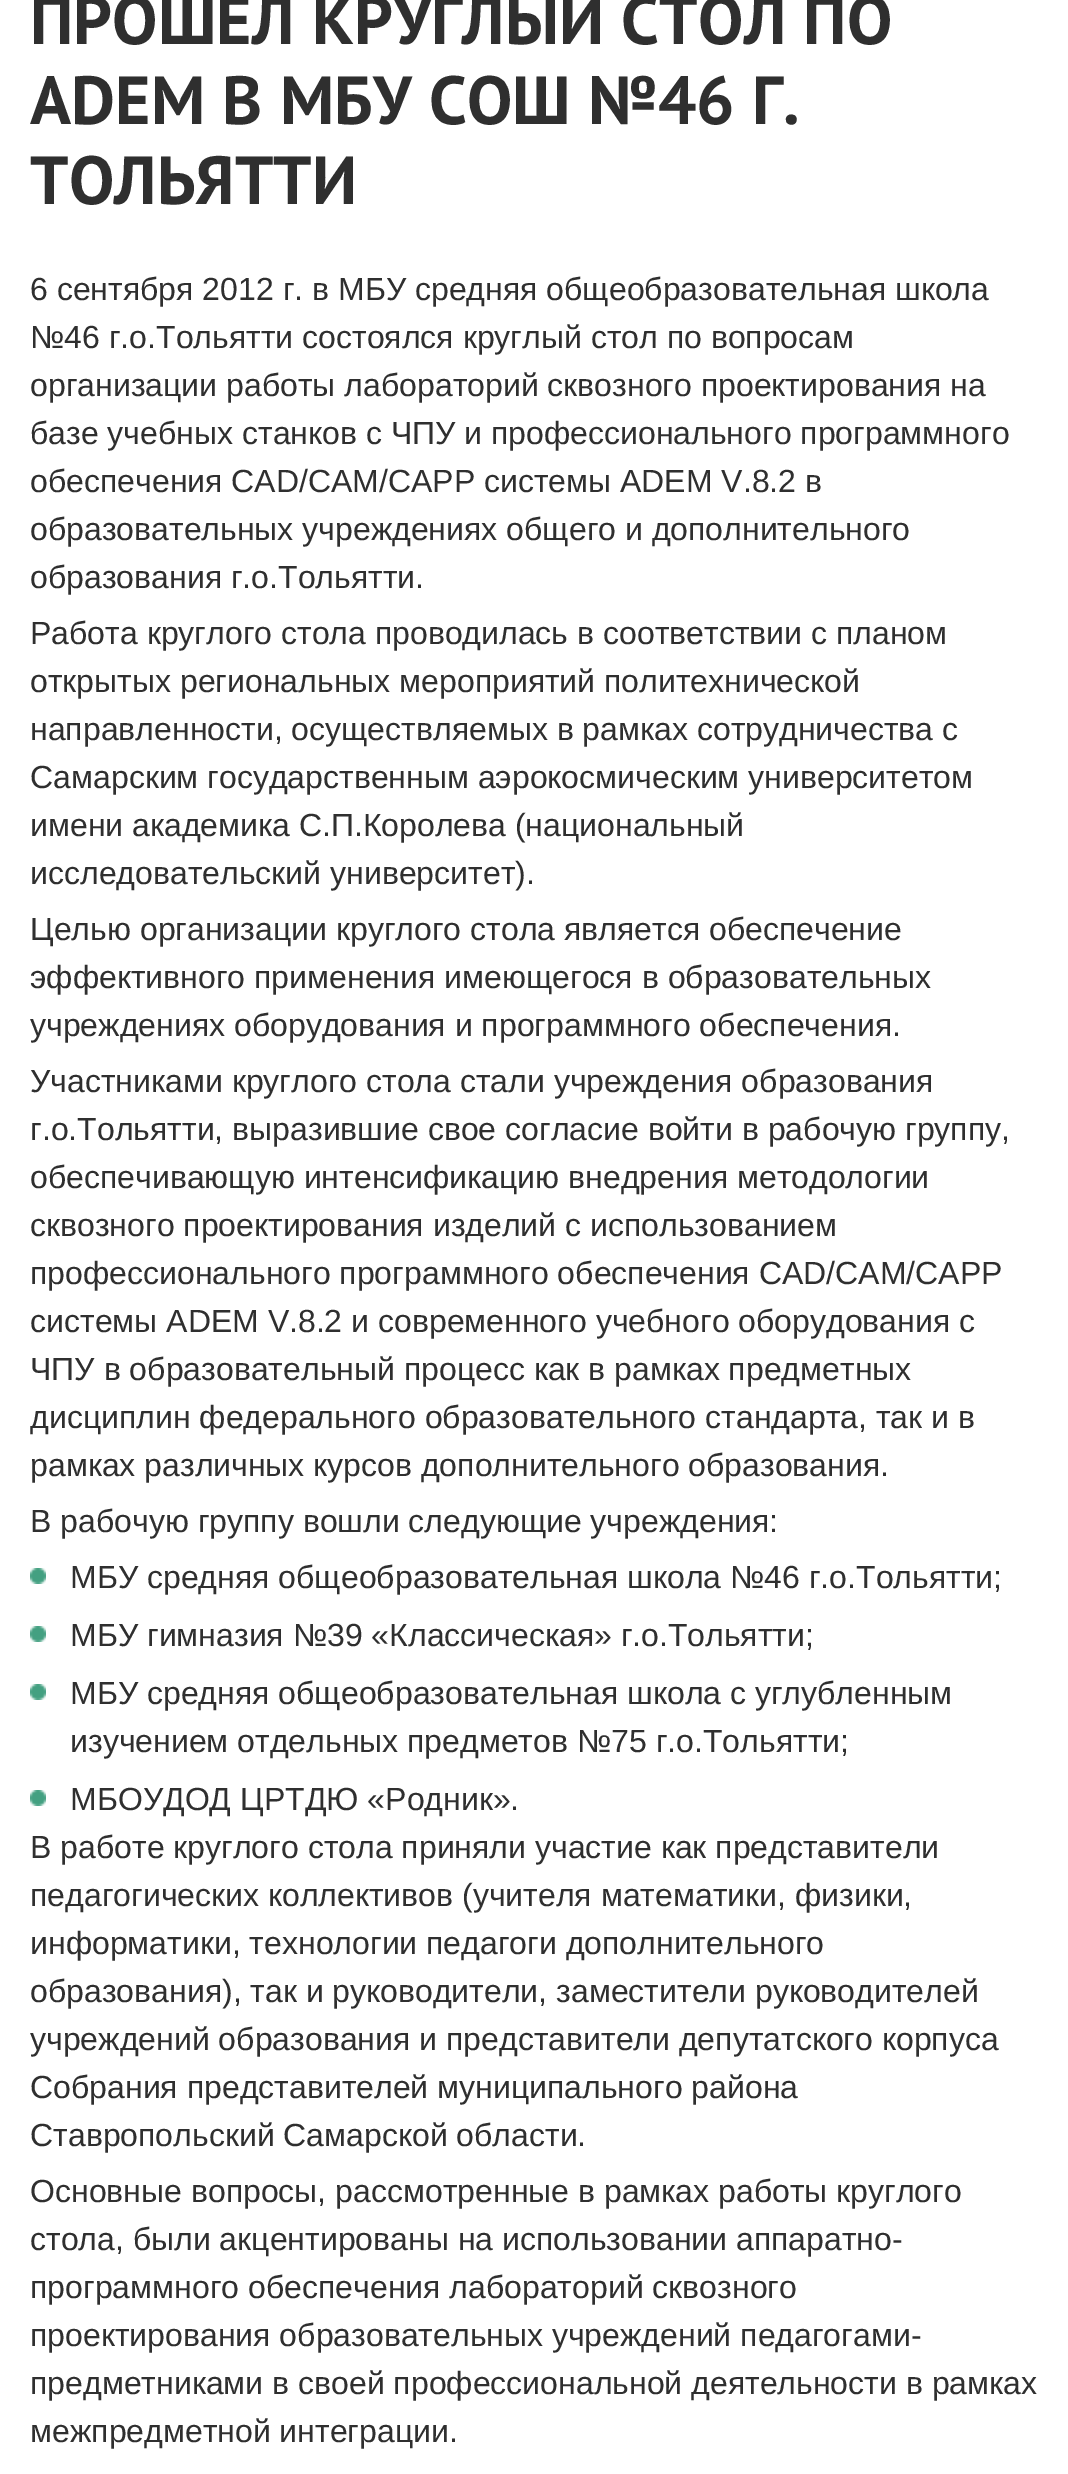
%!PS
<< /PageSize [1068 2474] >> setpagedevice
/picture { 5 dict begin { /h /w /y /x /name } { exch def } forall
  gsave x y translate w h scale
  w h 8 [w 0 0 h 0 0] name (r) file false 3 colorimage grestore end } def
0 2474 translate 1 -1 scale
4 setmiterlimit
1 setgray
0 0 1068 2474 rectfill
/PTSans-Bold [68 0 0 -68 0 0] selectfont
0.184 setgray
30 44 moveto (ПРОШЕЛ КРУГЛЫЙ СТОЛ ПО) show
30 124 moveto (ADEM В МБУ СОШ №46 Г.) show
30 204 moveto (ТОЛЬЯТТИ) show
/LiberationSans-Regular [32 0 0 -32 0 0] selectfont
30 300 moveto (6 сентября 2012 г. в МБУ средняя общеобразовательная школа) show
30 348 moveto (№46 г.о.Тольятти состоялся круглый стол по вопросам) show
30 396 moveto (организации работы лабораторий сквозного проектирования на) show
30 444 moveto (базе учебных станков с ЧПУ и профессионального программного) show
30 492 moveto (обеспечения CAD/CAM/CAPP системы ADEM V.8.2 в) show
30 540 moveto (образовательных учреждениях общего и дополнительного) show
30 588 moveto (образования г.о.Тольятти.) show
30 644 moveto (Работа круглого стола проводилась в соответствии с планом) show
30 692 moveto (открытых региональных мероприятий политехнической) show
30 740 moveto (направленности, осуществляемых в рамках сотрудничества с) show
30 788 moveto (Самарским государственным аэрокосмическим университетом) show
30 836 moveto (имени академика С.П.Королева \(национальный) show
30 884 moveto (исследовательский университет\).) show
30 940 moveto (Целью организации круглого стола является обеспечение) show
30 988 moveto (эффективного применения имеющегося в образовательных) show
30 1036 moveto (учреждениях оборудования и программного обеспечения.) show
30 1092 moveto (Участниками круглого стола стали учреждения образования) show
30 1140 moveto (г.о.Тольятти, выразившие свое согласие войти в рабочую группу,) show
30 1188 moveto (обеспечивающую интенсификацию внедрения методологии) show
30 1236 moveto (сквозного проектирования изделий с использованием) show
30 1284 moveto (профессионального программного обеспечения CAD/CAM/CAPP) show
30 1332 moveto (системы ADEM V.8.2 и современного учебного оборудования с) show
30 1380 moveto (ЧПУ в образовательный процесс как в рамках предметных) show
30 1428 moveto (дисциплин федерального образовательного стандарта, так и в) show
30 1476 moveto (рамках различных курсов дополнительного образования.) show
30 1532 moveto (В рабочую группу вошли следующие учреждения:) show
(img1.rgb) 30 1568 16 16 picture
70 1588 moveto (МБУ средняя общеобразовательная школа №46 г.о.Тольятти;) show
(img1.rgb) 30 1626 16 16 picture
70 1646 moveto (МБУ гимназия №39 «Классическая» г.о.Тольятти;) show
(img1.rgb) 30 1684 16 16 picture
70 1704 moveto (МБУ средняя общеобразовательная школа с углубленным) show
70 1752 moveto (изучением отдельных предметов №75 г.о.Тольятти;) show
(img1.rgb) 30 1790 16 16 picture
70 1810 moveto (МБОУДОД ЦРТДЮ «Родник».) show
30 1858 moveto (В работе круглого стола приняли участие как представители) show
30 1906 moveto (педагогических коллективов \(учителя математики, физики,) show
30 1954 moveto (информатики, технологии педагоги дополнительного) show
30 2002 moveto (образования\), так и руководители, заместители руководителей) show
30 2050 moveto (учреждений образования и представители депутатского корпуса) show
30 2098 moveto (Собрания представителей муниципального района) show
30 2146 moveto (Ставропольский Самарской области.) show
30 2202 moveto (Основные вопросы, рассмотренные в рамках работы круглого) show
30 2250 moveto (стола, были акцентированы на использовании аппаратно-) show
30 2298 moveto (программного обеспечения лабораторий сквозного) show
30 2346 moveto (проектирования образовательных учреждений педагогами-) show
30 2394 moveto (предметниками в своей профессиональной деятельности в рамках) show
30 2442 moveto (межпредметной интеграции.) show
showpage
